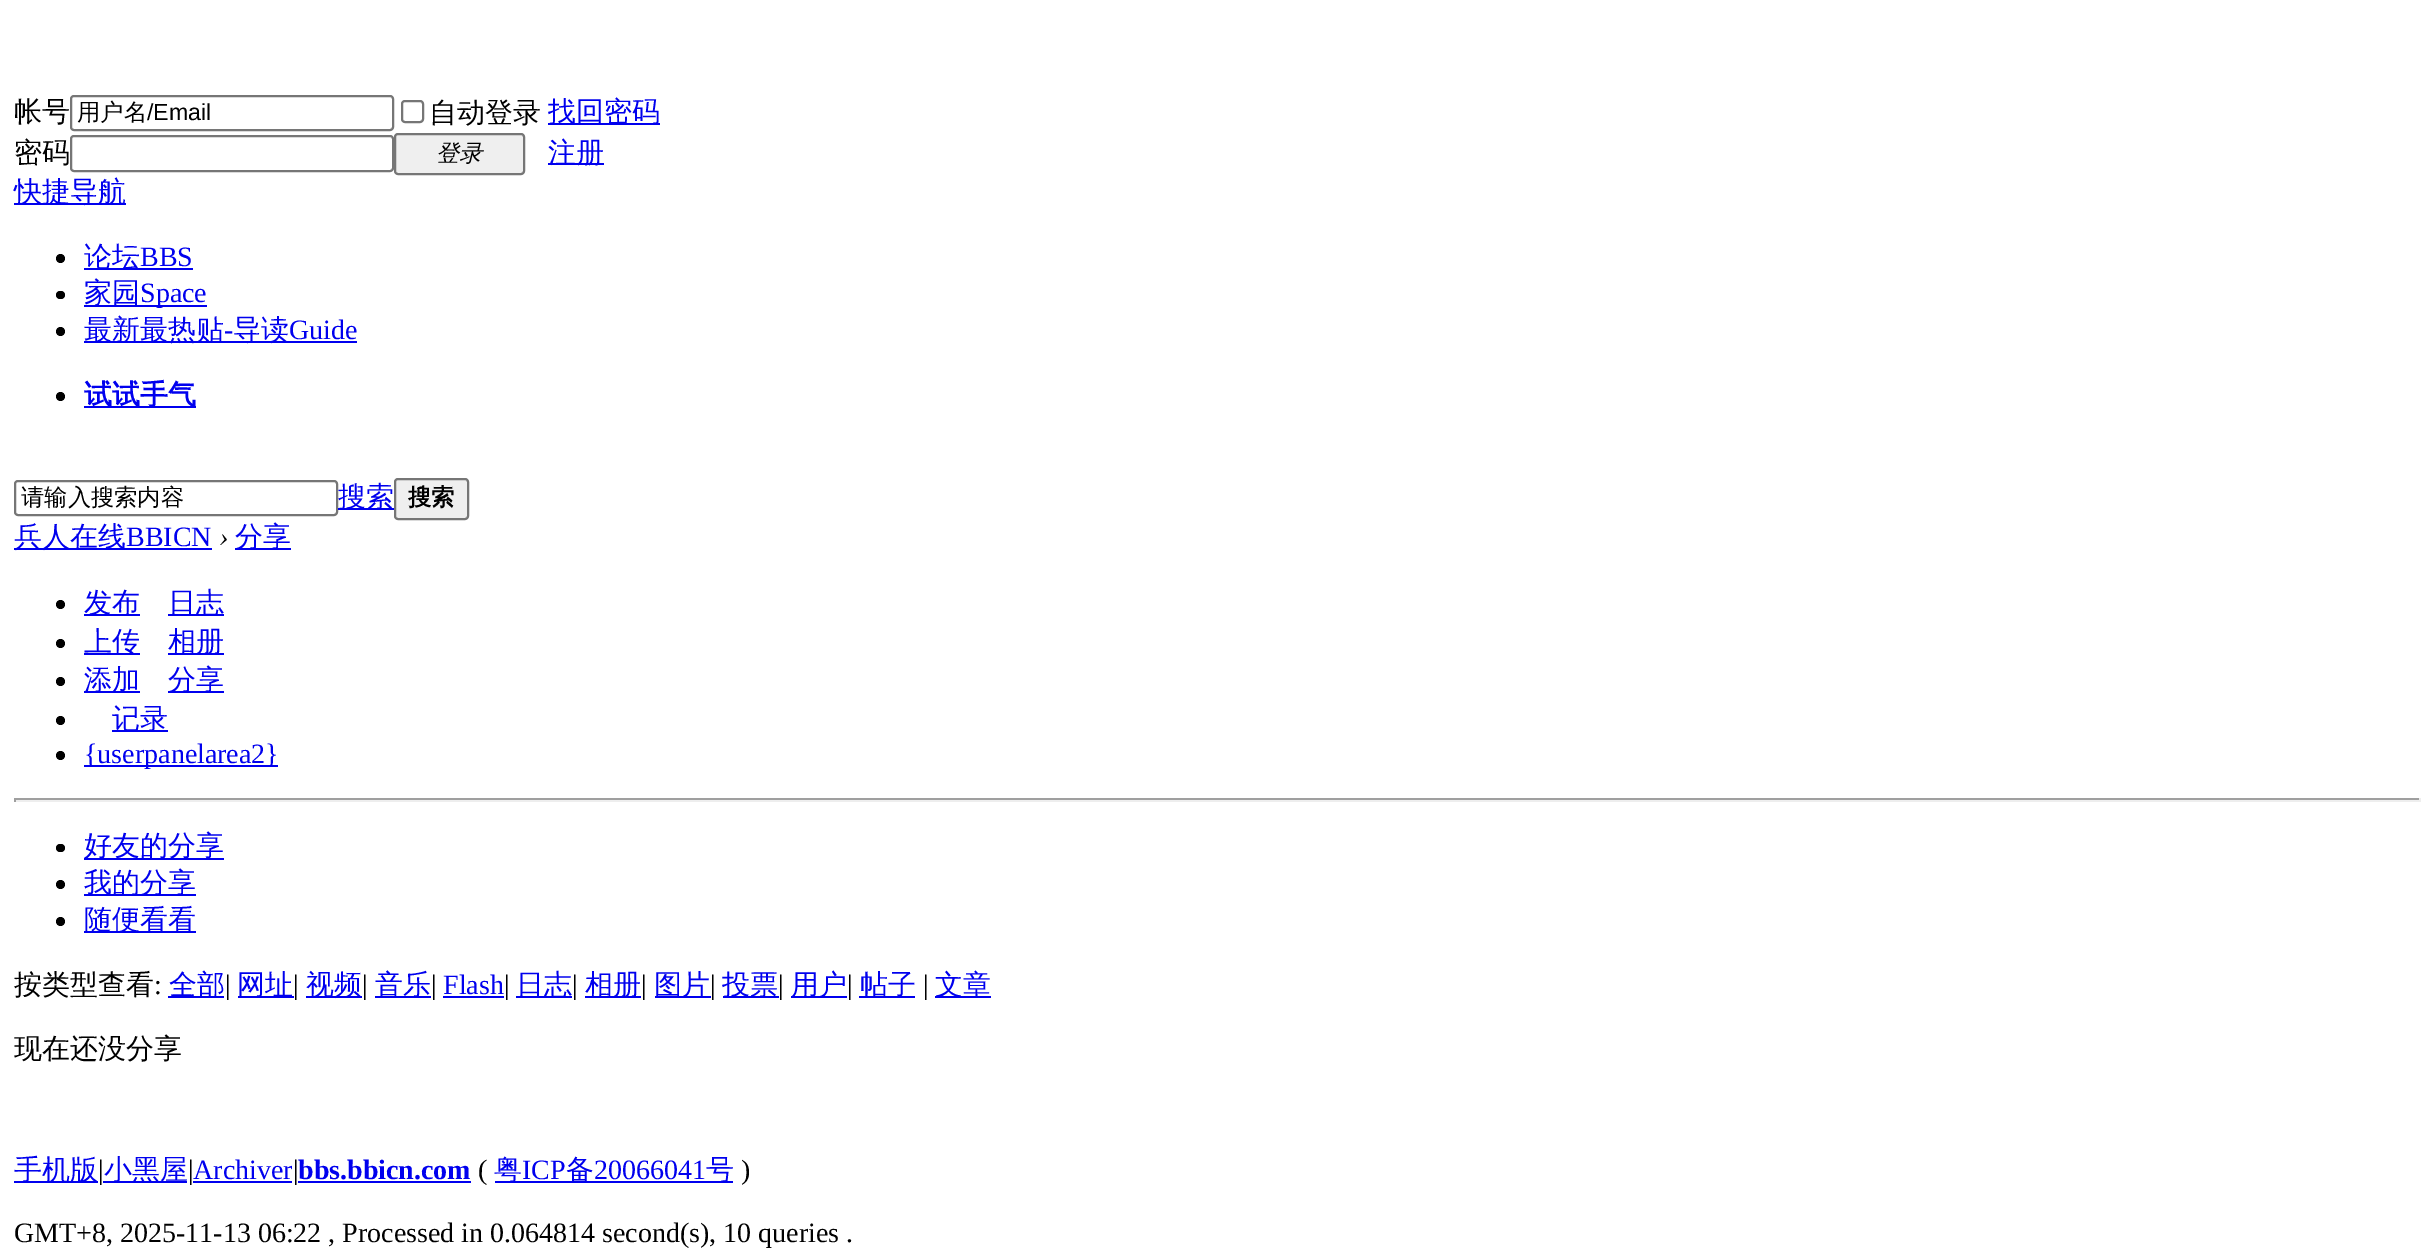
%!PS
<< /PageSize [2434 1258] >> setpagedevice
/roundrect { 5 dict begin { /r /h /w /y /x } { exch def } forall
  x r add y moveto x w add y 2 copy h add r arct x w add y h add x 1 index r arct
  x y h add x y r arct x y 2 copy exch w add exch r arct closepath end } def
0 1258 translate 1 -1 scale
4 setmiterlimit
1 setgray
0 0 2434 1258 rectfill
/WenQuanYiZenHei-Medium [28 0 0 -28 0 0] selectfont
0 setgray
14 121 moveto (帐号) show
0.463 setgray
2 setlinewidth
71 96 322 34 3 roundrect stroke
/WenQuanYiZenHei-Medium [23.25 0 0 -23.25 0 0] selectfont
0 setgray
77 120 moveto (用户名) show
/LiberationSans-Regular [23.25 0 0 -23.25 0 0] selectfont
147 120 moveto (/Email) show
0.463 setgray
402 101 21 21 3 roundrect stroke
/WenQuanYiZenHei-Medium [28 0 0 -28 0 0] selectfont
0 setgray
429 122 moveto (自动登录) show
0 0 0.933 setrgbcolor
548 123 112 2 rectfill
548 121 moveto (找回密码) show
0 setgray
14 162 moveto (密码) show
0.463 setgray
71 136 322 35 3 roundrect stroke
0.937 setgray
395 134 129 40 3 roundrect gsave fill grestore
0.463 setgray
stroke
/WenQuanYiZenHei-MediumItalic [23.25 0 0 -23.25 0 0] selectfont
0 setgray
436 161 moveto (登录) show
0 0 0.933 setrgbcolor
548 163 56 2 rectfill
/WenQuanYiZenHei-Medium [28 0 0 -28 0 0] selectfont
548 162 moveto (注册) show
14 203 112 2 rectfill
14 201 moveto (快捷导航) show
0 setgray
newpath 60.5 258.5 4.5 0 360 arc closepath fill
0 0 0.933 setrgbcolor
84 268 109 2 rectfill
84 266 moveto (论坛) show
/LiberationSerif-Regular [28 0 0 -28 0 0] selectfont
140 266 moveto (BBS) show
0 setgray
56 291 9 8 4 roundrect fill
0 0 0.933 setrgbcolor
84 305 123 2 rectfill
/WenQuanYiZenHei-Medium [28 0 0 -28 0 0] selectfont
84 302 moveto (家园) show
/LiberationSerif-Regular [28 0 0 -28 0 0] selectfont
140 302 moveto (Space) show
0 setgray
newpath 60.5 331.5 4.5 0 360 arc closepath fill
0 0 0.933 setrgbcolor
84 341 273 2 rectfill
/WenQuanYiZenHei-Medium [28 0 0 -28 0 0] selectfont
84 339 moveto (最新最热贴) show
/LiberationSerif-Regular [28 0 0 -28 0 0] selectfont
224 339 moveto (-) show
/WenQuanYiZenHei-Medium [28 0 0 -28 0 0] selectfont
233 339 moveto (导读) show
/LiberationSerif-Regular [28 0 0 -28 0 0] selectfont
289 339 moveto (Guide) show
0 setgray
newpath 60.5 396.5 4.5 0 360 arc closepath fill
0 0 0.933 setrgbcolor
84 406 112 2 rectfill
/WenQuanYiZenHei-Bold [28 0 0 -28 0 0] selectfont
84 404 moveto (试试手气) show
0.463 setgray
15 481 322 34 3 roundrect stroke
/WenQuanYiZenHei-Medium [23.25 0 0 -23.25 0 0] selectfont
0 setgray
21 505 moveto (请输入搜索内容) show
0 0 0.933 setrgbcolor
338 508 56 2 rectfill
/WenQuanYiZenHei-Medium [28 0 0 -28 0 0] selectfont
338 506 moveto (搜索) show
0.937 setgray
395 479 73 40 3 roundrect gsave fill grestore
0.463 setgray
stroke
/WenQuanYiZenHei-Bold [23.25 0 0 -23.25 0 0] selectfont
0 setgray
408 505 moveto (搜索) show
0 0 0.933 setrgbcolor
14 548 198 2 rectfill
/WenQuanYiZenHei-Medium [28 0 0 -28 0 0] selectfont
14 546 moveto (兵人在线) show
/LiberationSerif-Regular [28 0 0 -28 0 0] selectfont
126 546 moveto (BBICN) show
/LiberationSerif-Italic [28 0 0 -28 0 0] selectfont
0 setgray
219 546 moveto (›) show
0 0 0.933 setrgbcolor
235 548 56 2 rectfill
/WenQuanYiZenHei-Medium [28 0 0 -28 0 0] selectfont
235 546 moveto (分享) show
0 setgray
newpath 60.5 604.5 4.5 0 360 arc closepath fill
0 0 0.933 setrgbcolor
84 614 56 2 rectfill
84 612 moveto (发布) show
168 614 56 2 rectfill
168 612 moveto (日志) show
0 setgray
newpath 60.5 643.5 4.5 0 360 arc closepath fill
0 0 0.933 setrgbcolor
84 653 56 2 rectfill
84 651 moveto (上传) show
168 653 56 2 rectfill
168 651 moveto (相册) show
0 setgray
newpath 60.5 681.5 4.5 0 360 arc closepath fill
0 0 0.933 setrgbcolor
84 691 56 2 rectfill
84 689 moveto (添加) show
168 691 56 2 rectfill
168 689 moveto (分享) show
0 setgray
newpath 60.5 720.5 4.5 0 360 arc closepath fill
0 0 0.933 setrgbcolor
112 730 56 2 rectfill
112 728 moveto (记录) show
0 setgray
newpath 60.5 755.5 4.5 0 360 arc closepath fill
0 0 0.933 setrgbcolor
84 765 194 2 rectfill
/LiberationSerif-Regular [28 0 0 -28 0 0] selectfont
84 763 moveto ({userpanelarea2}) show
0.624 setgray
14 798 2406 2 rectfill
0.933 setgray
2419 798 2 4 rectfill
14 800 2406 2 rectfill
0.624 setgray
14 798 2 4 rectfill
0 setgray
56 844 9 8 4 roundrect fill
0 0 0.933 setrgbcolor
84 858 140 2 rectfill
/WenQuanYiZenHei-Medium [28 0 0 -28 0 0] selectfont
84 855 moveto (好友的分享) show
0 setgray
newpath 60.5 884.5 4.5 0 360 arc closepath fill
0 0 0.933 setrgbcolor
84 894 112 2 rectfill
84 892 moveto (我的分享) show
0 setgray
newpath 60.5 921.5 4.5 0 360 arc closepath fill
0 0 0.933 setrgbcolor
84 931 112 2 rectfill
84 929 moveto (随便看看) show
0 setgray
14 994 moveto (按类型查看) show
/LiberationSerif-Regular [28 0 0 -28 0 0] selectfont
154 994 moveto (:) show
0 0 0.933 setrgbcolor
168 996 56 2 rectfill
/WenQuanYiZenHei-Medium [28 0 0 -28 0 0] selectfont
169 994 moveto (全部) show
/LiberationSerif-Regular [28 0 0 -28 0 0] selectfont
0 setgray
225 994 moveto (|) show
0 0 0.933 setrgbcolor
238 996 56 2 rectfill
/WenQuanYiZenHei-Medium [28 0 0 -28 0 0] selectfont
237 994 moveto (网址) show
/LiberationSerif-Regular [28 0 0 -28 0 0] selectfont
0 setgray
293 994 moveto (|) show
0 0 0.933 setrgbcolor
306 996 56 2 rectfill
/WenQuanYiZenHei-Medium [28 0 0 -28 0 0] selectfont
306 994 moveto (视频) show
/LiberationSerif-Regular [28 0 0 -28 0 0] selectfont
0 setgray
362 994 moveto (|) show
0 0 0.933 setrgbcolor
375 996 56 2 rectfill
/WenQuanYiZenHei-Medium [28 0 0 -28 0 0] selectfont
375 994 moveto (音乐) show
/LiberationSerif-Regular [28 0 0 -28 0 0] selectfont
0 setgray
431 994 moveto (|) show
0 0 0.933 setrgbcolor
443 994 moveto (Flash) show
443 996 61 2 rectfill
0 setgray
504 994 moveto (|) show
0 0 0.933 setrgbcolor
516 996 56 2 rectfill
/WenQuanYiZenHei-Medium [28 0 0 -28 0 0] selectfont
516 994 moveto (日志) show
/LiberationSerif-Regular [28 0 0 -28 0 0] selectfont
0 setgray
572 994 moveto (|) show
0 0 0.933 setrgbcolor
585 996 56 2 rectfill
/WenQuanYiZenHei-Medium [28 0 0 -28 0 0] selectfont
585 994 moveto (相册) show
/LiberationSerif-Regular [28 0 0 -28 0 0] selectfont
0 setgray
641 994 moveto (|) show
0 0 0.933 setrgbcolor
655 996 56 2 rectfill
/WenQuanYiZenHei-Medium [28 0 0 -28 0 0] selectfont
654 994 moveto (图片) show
/LiberationSerif-Regular [28 0 0 -28 0 0] selectfont
0 setgray
710 994 moveto (|) show
0 0 0.933 setrgbcolor
723 996 56 2 rectfill
/WenQuanYiZenHei-Medium [28 0 0 -28 0 0] selectfont
722 994 moveto (投票) show
/LiberationSerif-Regular [28 0 0 -28 0 0] selectfont
0 setgray
778 994 moveto (|) show
0 0 0.933 setrgbcolor
791 996 56 2 rectfill
/WenQuanYiZenHei-Medium [28 0 0 -28 0 0] selectfont
791 994 moveto (用户) show
/LiberationSerif-Regular [28 0 0 -28 0 0] selectfont
0 setgray
847 994 moveto (|) show
0 0 0.933 setrgbcolor
859 996 56 2 rectfill
/WenQuanYiZenHei-Medium [28 0 0 -28 0 0] selectfont
860 994 moveto (帖子) show
/LiberationSerif-Regular [28 0 0 -28 0 0] selectfont
0 setgray
923 994 moveto (|) show
0 0 0.933 setrgbcolor
935 996 56 2 rectfill
/WenQuanYiZenHei-Medium [28 0 0 -28 0 0] selectfont
935 994 moveto (文章) show
0 setgray
14 1058 moveto (现在还没分享) show
0 0 0.933 setrgbcolor
14 1181 84 2 rectfill
14 1179 moveto (手机版) show
/LiberationSerif-Regular [28 0 0 -28 0 0] selectfont
0 setgray
98 1179 moveto (|) show
0 0 0.933 setrgbcolor
103 1181 84 2 rectfill
/WenQuanYiZenHei-Medium [28 0 0 -28 0 0] selectfont
104 1179 moveto (小黑屋) show
/LiberationSerif-Regular [28 0 0 -28 0 0] selectfont
0 setgray
188 1179 moveto (|) show
0 0 0.933 setrgbcolor
193 1179 moveto (Archiver) show
193 1181 99 2 rectfill
0 setgray
293 1179 moveto (|) show
/LiberationSerif-Bold [28 0 0 -28 0 0] selectfont
0 0 0.933 setrgbcolor
298 1179 moveto (bbs.bbicn.com) show
298 1181 173 2 rectfill
/LiberationSerif-Regular [28 0 0 -28 0 0] selectfont
0 setgray
478 1179 moveto (\() show
0 0 0.933 setrgbcolor
495 1181 238 2 rectfill
/WenQuanYiZenHei-Medium [28 0 0 -28 0 0] selectfont
494 1179 moveto (粤) show
/LiberationSerif-Regular [28 0 0 -28 0 0] selectfont
522 1179 moveto (ICP) show
/WenQuanYiZenHei-Medium [28 0 0 -28 0 0] selectfont
566 1179 moveto (备) show
/LiberationSerif-Regular [28 0 0 -28 0 0] selectfont
594 1179 moveto (20066041) show
/WenQuanYiZenHei-Medium [28 0 0 -28 0 0] selectfont
706 1179 moveto (号) show
/LiberationSerif-Regular [28 0 0 -28 0 0] selectfont
0 setgray
741 1179 moveto (\)) show
14 1242 moveto (GMT+8, 2025-11-13 06:22 , Processed in 0.064814 second\(s\), 10 queries .) show
showpage
